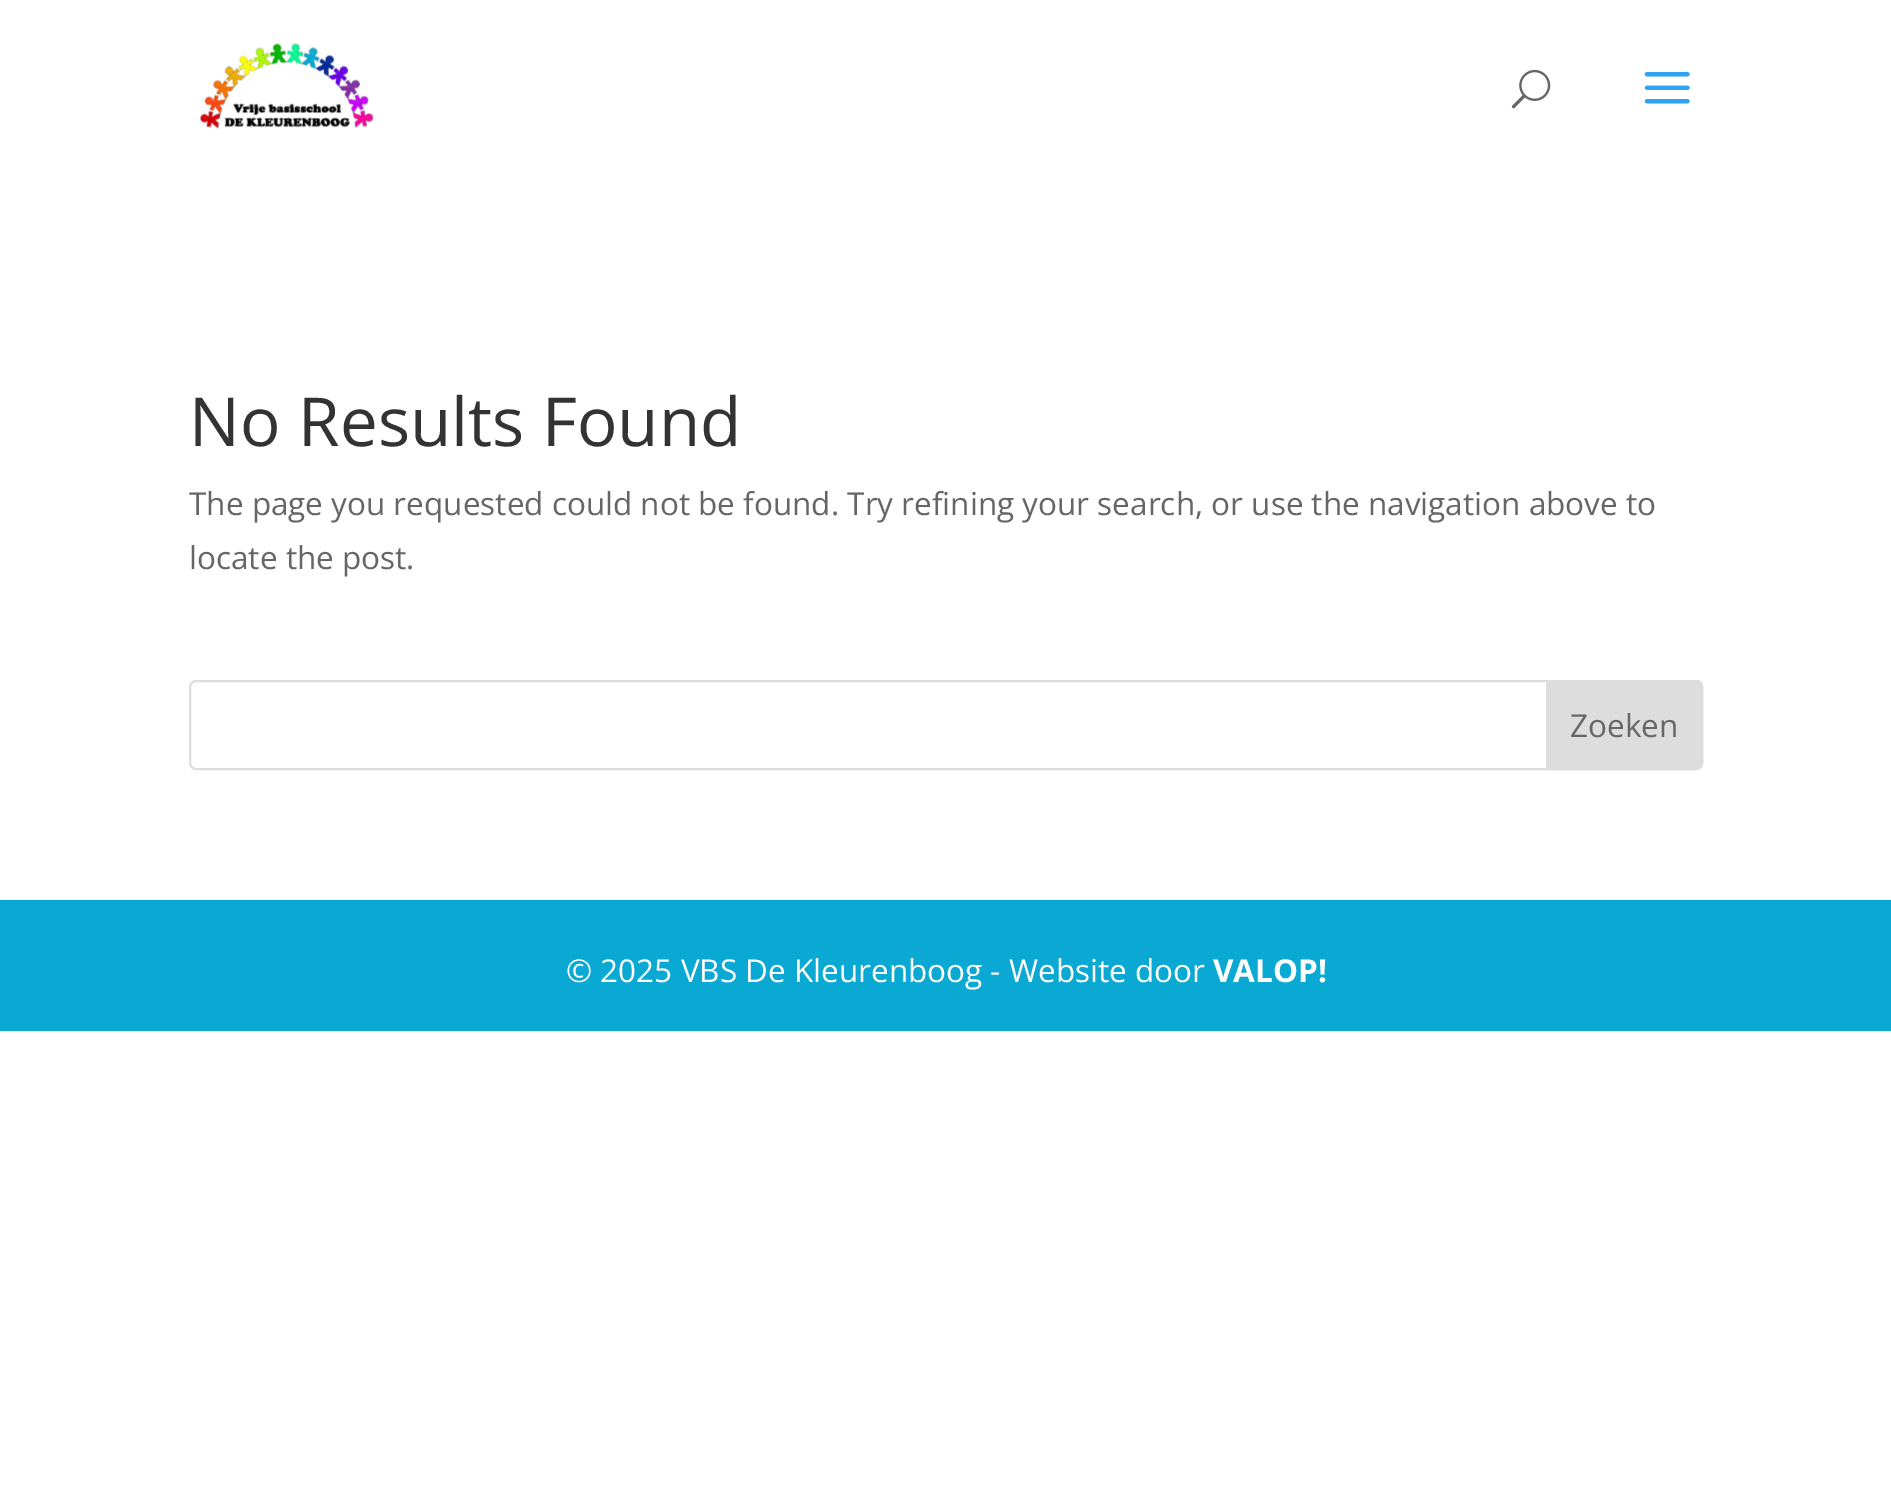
%!PS
<< /PageSize [1891 1501] >> setpagedevice
/roundrect { 5 dict begin { /r /h /w /y /x } { exch def } forall
  x r add y moveto x w add y 2 copy h add r arct x w add y h add x 1 index r arct
  x y h add x y r arct x y 2 copy exch w add exch r arct closepath end } def
/picture { 5 dict begin { /h /w /y /x /name } { exch def } forall
  gsave x y translate w h scale
  w h 8 [w 0 0 h 0 0] name (r) file false 3 colorimage grestore end } def
0 1501 translate 1 -1 scale
4 setmiterlimit
1 setgray
0 0 1891 1501 rectfill
(img1.rgb) 199 43 175 86 picture
(img2.rgb) 1511 69 40 40 picture
(img3.rgb) 1644 72 46 32 picture
/OpenSans-Regular [67.5 0 0 -67.5 0 0] selectfont
0.2 setgray
189 446 moveto (No Results Found) show
/OpenSans-Regular [31.5 0 0 -31.5 0 0] selectfont
0.4 setgray
189 515 moveto (The page you requested could not be found. Try refining your search, or use the navigation above to) show
189 569 moveto (locate the post.) show
0.867 setgray
2 setlinewidth
190 681 1512 88 6 roundrect stroke
newpath 1547 681 moveto 1696 681 lineto 1699.5 681 1702 683.5 1702 687 curveto 1702 763 lineto 1702 766.5 1699.5 769 1696 769 curveto 1547 769 lineto closepath gsave fill grestore
stroke
0.4 setgray
1570 737 moveto (Zoeken) show
0.039 0.663 0.827 setrgbcolor
0 900 1891 131 rectfill
1 setgray
566 982 moveto (© 2025 VBS De Kleurenboog - Website door) show
/OpenSans-Bold [31.5 0 0 -31.5 0 0] selectfont
1213 982 moveto (VALOP!) show
showpage
